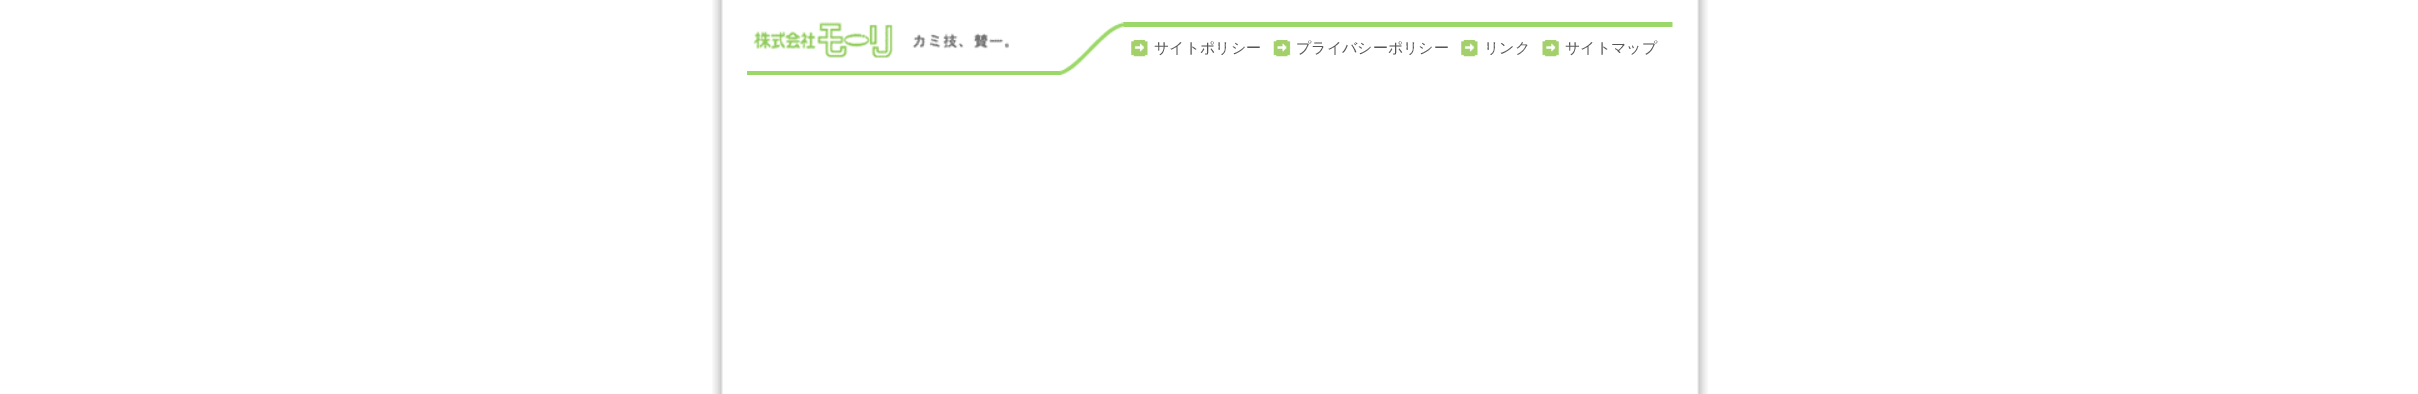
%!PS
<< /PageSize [2418 394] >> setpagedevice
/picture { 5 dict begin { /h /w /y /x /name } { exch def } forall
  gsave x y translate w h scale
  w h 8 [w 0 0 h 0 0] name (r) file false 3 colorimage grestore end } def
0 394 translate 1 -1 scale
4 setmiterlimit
1 setgray
0 0 2418 394 rectfill
(img1.rgb) 712 0 11 394 picture
0.612 0.847 0.412 setrgbcolor
747 71 313 4 rectfill
(img2.rgb) 753 22 140 36 picture
(img3.rgb) 892 25 117 29 picture
1123 22 550 5 rectfill
(img4.rgb) 1060 22 64 53 picture
(img5.rgb) 1131 40 17 17 picture
/WenQuanYiZenHei-Medium [15 0 0 -15 0 0] selectfont
0.337 setgray
1154 53 moveto (サイトポリシー) show
(img6.rgb) 1273 40 18 17 picture
1296 53 moveto (プライバシーポリシー) show
(img5.rgb) 1461 40 17 17 picture
1484 53 moveto (リンク) show
(img7.rgb) 1542 40 17 17 picture
1565 53 moveto (サイトマップ) show
(img8.rgb) 1672 0 36 394 picture
showpage
